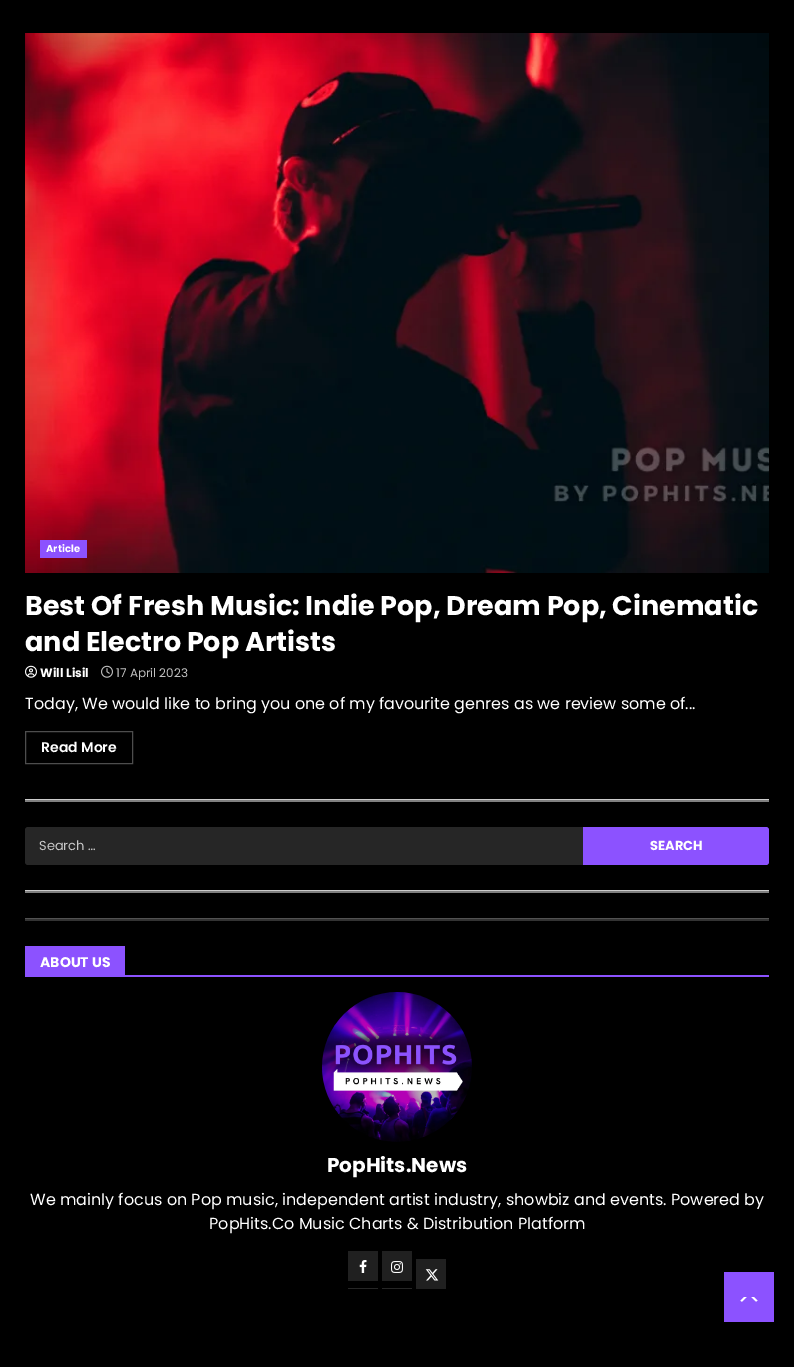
%!PS
<< /PageSize [794 1367] >> setpagedevice
/picture { 5 dict begin { /h /w /y /x /name } { exch def } forall
  gsave x y translate w h scale
  w h 8 [w 0 0 h 0 0] name (r) file false 3 colorimage grestore end } def
0 1367 translate 1 -1 scale
4 setmiterlimit
0 setgray
0 0 794 1367 rectfill
(img1.rgb) 25 33 744 540 picture
0.549 0.322 1 setrgbcolor
40 540 47 18 rectfill
/Poppins-Bold [10 0 0 -10 0 0] selectfont
1 setgray
46 552 moveto (Article) show
/Poppins-Bold [27 0 0 -27 0 0] selectfont
25 615 moveto (Best Of Fresh Music: Indie Pop, Dream Pop, Cinematic) show
25 651 moveto (and Electro Pop Artists) show
(img2.rgb) 25 665 12 13 picture
/Poppins-Bold [12 0 0 -12 0 0] selectfont
40 677 moveto (Will Lisil) show
(img3.rgb) 101 665 12 13 picture
/Poppins-Regular [12 0 0 -12 0 0] selectfont
0.749 setgray
116 677 moveto (17 April 2023) show
/Poppins-Regular [16 0 0 -16 0 0] selectfont
1 setgray
25 709 moveto (Today, We would like to bring you one of my favourite genres as we review some of...) show
0.302 setgray
25.5 731.5 107 32 rectstroke
/Poppins-SemiBold [14 0 0 -14 0 0] selectfont
1 setgray
41 752 moveto (Read More) show
0.8 setgray
25 799 744 1 rectfill
0.502 setgray
25 800 744 2 rectfill
0.149 setgray
newpath 28 827 moveto 583 827 lineto 583 865 lineto 28 865 lineto 26.5 865 25 863.5 25 862 curveto 25 830 lineto 25 828.5 26.5 827 28 827 curveto closepath fill
/Poppins-Regular [13 0 0 -13 0 0] selectfont
0.788 setgray
39 850 moveto (Search …) show
0.549 0.322 1 setrgbcolor
newpath 583 827 moveto 766 827 lineto 767.5 827 769 828.5 769 830 curveto 769 862 lineto 769 863.5 767.5 865 766 865 curveto 583 865 lineto closepath fill
/Poppins-Bold [13 0 0 -13 0 0] selectfont
1 setgray
650 850 moveto (SEARCH) show
0.8 setgray
25 890 744 1 rectfill
0.502 setgray
25 891 744 2 rectfill
0.322 setgray
25 918 744 1 rectfill
0.2 setgray
25 919 744 2 rectfill
0.549 0.322 1 setrgbcolor
25 975 744 2 rectfill
25 946 100 29 rectfill
/Poppins-Bold [14 0 0 -14 0 0] selectfont
1 setgray
40 967 moveto (ABOUT US) show
(img4.rgb) 322 992 150 150 picture
/Poppins-Bold [20 0 0 -20 0 0] selectfont
327 1172 moveto (PopHits.News) show
/Poppins-Regular [16 0 0 -16 0 0] selectfont
30 1205 moveto (We mainly focus on Pop music, independent artist industry, showbiz and events. Powered by) show
209 1229 moveto (PopHits.Co Music Charts & Distribution Platform) show
0.149 setgray
348 1288 30 1 rectfill
0.125 setgray
348 1251 30 30 rectfill
(img5.rgb) 359 1260 8 13 picture
0.149 setgray
382 1288 30 1 rectfill
0.125 setgray
382 1251 30 30 rectfill
(img6.rgb) 391 1261 12 12 picture
416 1259 30 30 rectfill
(img7.rgb) 425 1269 14 12 picture
0.549 0.322 1 setrgbcolor
724 1272 50 50 rectfill
1 setgray
newpath 744 1302 moveto 747 1302 755.5 1303 757.5 1300.5 curveto 754 1297 lineto 744 1297 lineto 740.5 1300.5 lineto 741 1301.5 742.5 1302 744 1302 curveto closepath fill
0.549 0.322 1 setrgbcolor
newpath 759 1305 moveto 739 1305 lineto 749 1295 lineto closepath fill
showpage
